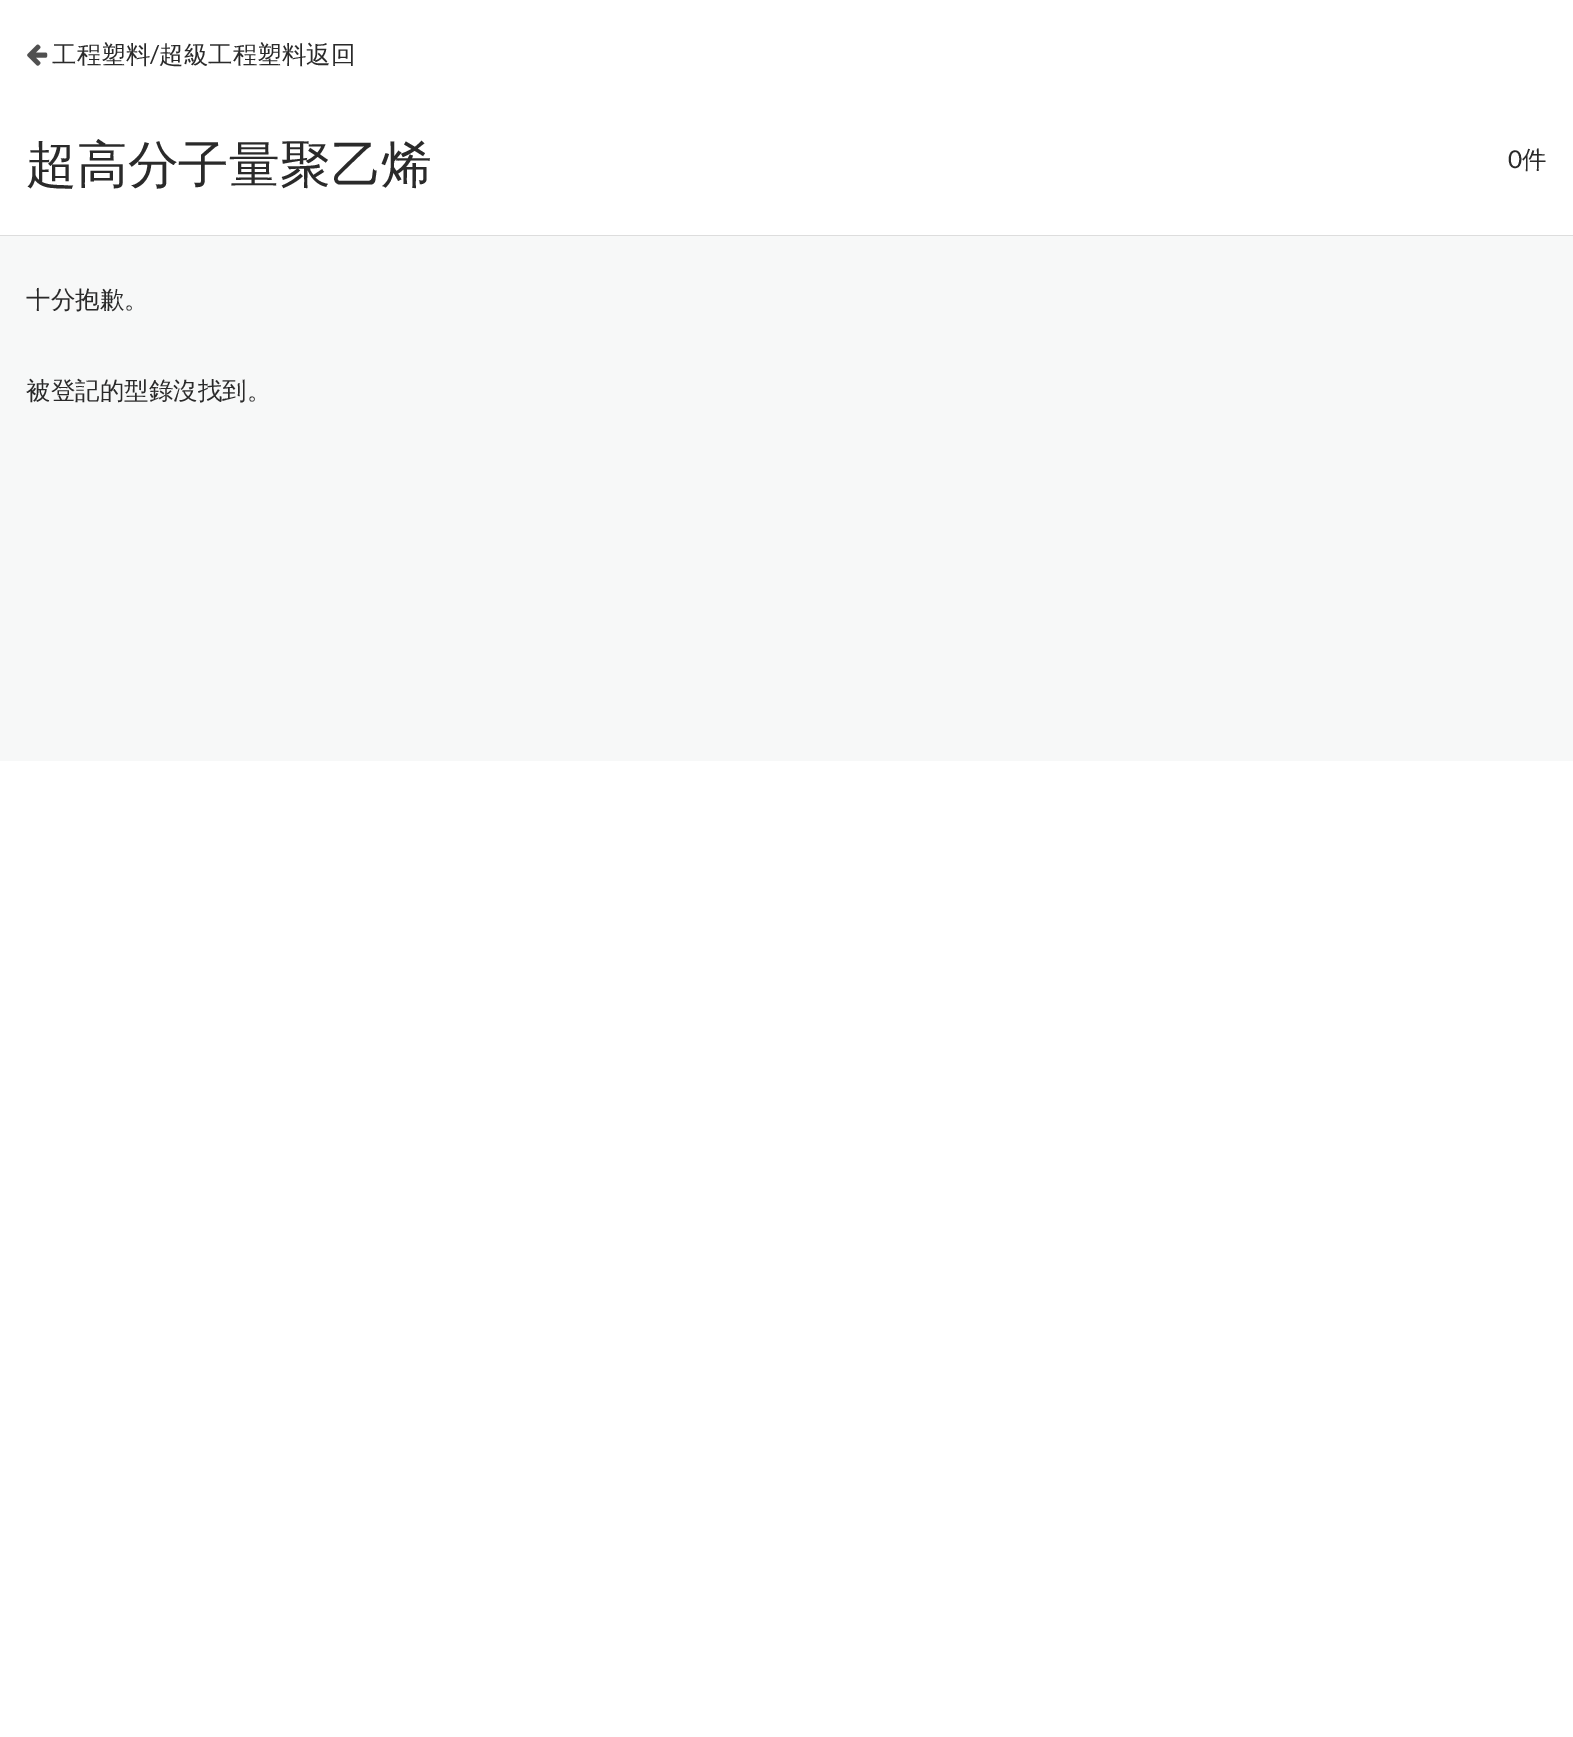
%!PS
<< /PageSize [1573 1737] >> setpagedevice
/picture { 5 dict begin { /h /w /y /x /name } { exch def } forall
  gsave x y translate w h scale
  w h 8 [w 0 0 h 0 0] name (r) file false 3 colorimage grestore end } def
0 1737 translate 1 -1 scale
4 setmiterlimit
1 setgray
0 0 1573 1737 rectfill
(img1.rgb) 27 44 21 22 picture
/WenQuanYiZenHei-Medium [24.5 0 0 -24.5 0 0] selectfont
0.165 setgray
52 63 moveto (工程塑料) show
/Lato-Regular [24.5 0 0 -24.5 0 0] selectfont
150 63 moveto (/) show
/WenQuanYiZenHei-Medium [24.5 0 0 -24.5 0 0] selectfont
159 63 moveto (超級工程塑料返回) show
/WenQuanYiZenHei-Medium [50.75 0 0 -50.75 0 0] selectfont
26 182 moveto (超高分子量聚乙烯) show
/Lato-Regular [24.5 0 0 -24.5 0 0] selectfont
1508 168 moveto (0) show
/WenQuanYiZenHei-Medium [24.5 0 0 -24.5 0 0] selectfont
1522 168 moveto (件) show
0.867 setgray
0 235 1573 1 rectfill
0.969 0.973 0.973 setrgbcolor
0 236 1573 525 rectfill
0.165 setgray
26 308 moveto (十分抱歉。) show
26 399 moveto (被登記的型錄沒找到。) show
showpage
